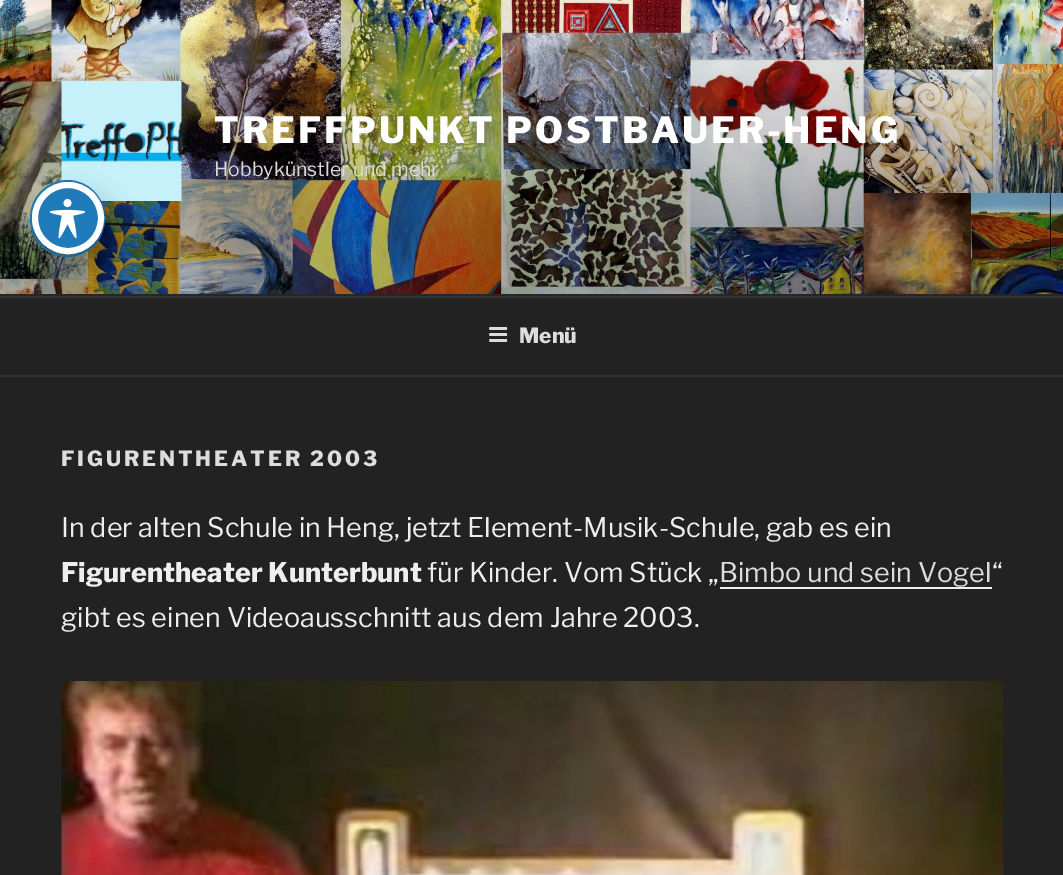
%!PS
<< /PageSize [1063 875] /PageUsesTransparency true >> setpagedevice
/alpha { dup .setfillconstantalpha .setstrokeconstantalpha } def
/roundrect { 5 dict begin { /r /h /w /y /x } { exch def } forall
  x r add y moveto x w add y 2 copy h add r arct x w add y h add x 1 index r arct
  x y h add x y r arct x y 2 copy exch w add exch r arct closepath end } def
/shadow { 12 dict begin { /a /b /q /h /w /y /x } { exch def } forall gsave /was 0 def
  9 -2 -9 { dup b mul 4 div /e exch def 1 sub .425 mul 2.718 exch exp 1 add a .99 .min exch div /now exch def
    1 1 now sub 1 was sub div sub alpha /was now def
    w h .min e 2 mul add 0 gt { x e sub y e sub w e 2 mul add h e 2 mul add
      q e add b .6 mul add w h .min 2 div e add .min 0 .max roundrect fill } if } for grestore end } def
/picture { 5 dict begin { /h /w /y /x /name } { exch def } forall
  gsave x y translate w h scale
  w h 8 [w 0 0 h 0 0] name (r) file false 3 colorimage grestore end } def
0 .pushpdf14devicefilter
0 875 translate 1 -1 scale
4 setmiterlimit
0.133 setgray
0 0 1063 875 rectfill
0.149 setgray
0 294 1063 2 rectfill
(img1.rgb) 0 0 1063 294 picture
(img2.rgb) 61 81 121 120 picture
/LibreFranklin-Thin [36 0 0 -36 0 0] selectfont
1 setgray
214 143 moveto 2.9 0 (TREFFPUNKT POSTBAUER-HENG) ashow
/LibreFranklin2-Thin [19.5 0 0 -19.5 0 0] selectfont
0.855 0.855 0.843 setrgbcolor
214 176 moveto (Hobbykünstler und mehr) show
0.2 setgray
0 296 1063 2 rectfill
0 375 1063 2 rectfill
(img3.rgb) 489 327 19 15 picture
/LibreFranklin-Thin [21 0 0 -21 0 0] selectfont
0.867 setgray
519 343 moveto (Menü) show
61 466 moveto 2.9 0 (FIGURENTHEATER 2003) ashow
/LibreFranklin2-Thin [27 0 0 -27 0 0] selectfont
0.933 setgray
61 537 moveto (In der alten Schule in Heng, jetzt Element-Musik-Schule, gab es ein) show
/LibreFranklin-Thin [27 0 0 -27 0 0] selectfont
61 582 moveto (Figurentheater Kunterbunt) show
/LibreFranklin2-Thin [27 0 0 -27 0 0] selectfont
427 582 moveto (für Kinder. Vom Stück „) show
0.867 setgray
719 582 moveto (Bimbo und sein Vogel) show
0.941 setgray
720 587 272 2 rectfill
0.933 setgray
992 582 moveto (“) show
61 627 moveto (gibt es einen Videoausschnitt aus dem Jahre 2003.) show
(img4.rgb) 61 681 943 194 picture
0.118 0.478 0.725 setrgbcolor
2 setlinewidth
31 181 73 75 36.5 roundrect stroke
0 setgray
41 194 72 72 36 12 0.2 shadow
0.118 0.478 0.725 setrgbcolor
newpath 68 218 33 0 360 arc closepath gsave fill grestore
1 setgray
6 setlinewidth
stroke
(img5.rgb) 49 199 37 40 picture
.poppdf14devicefilter showpage
